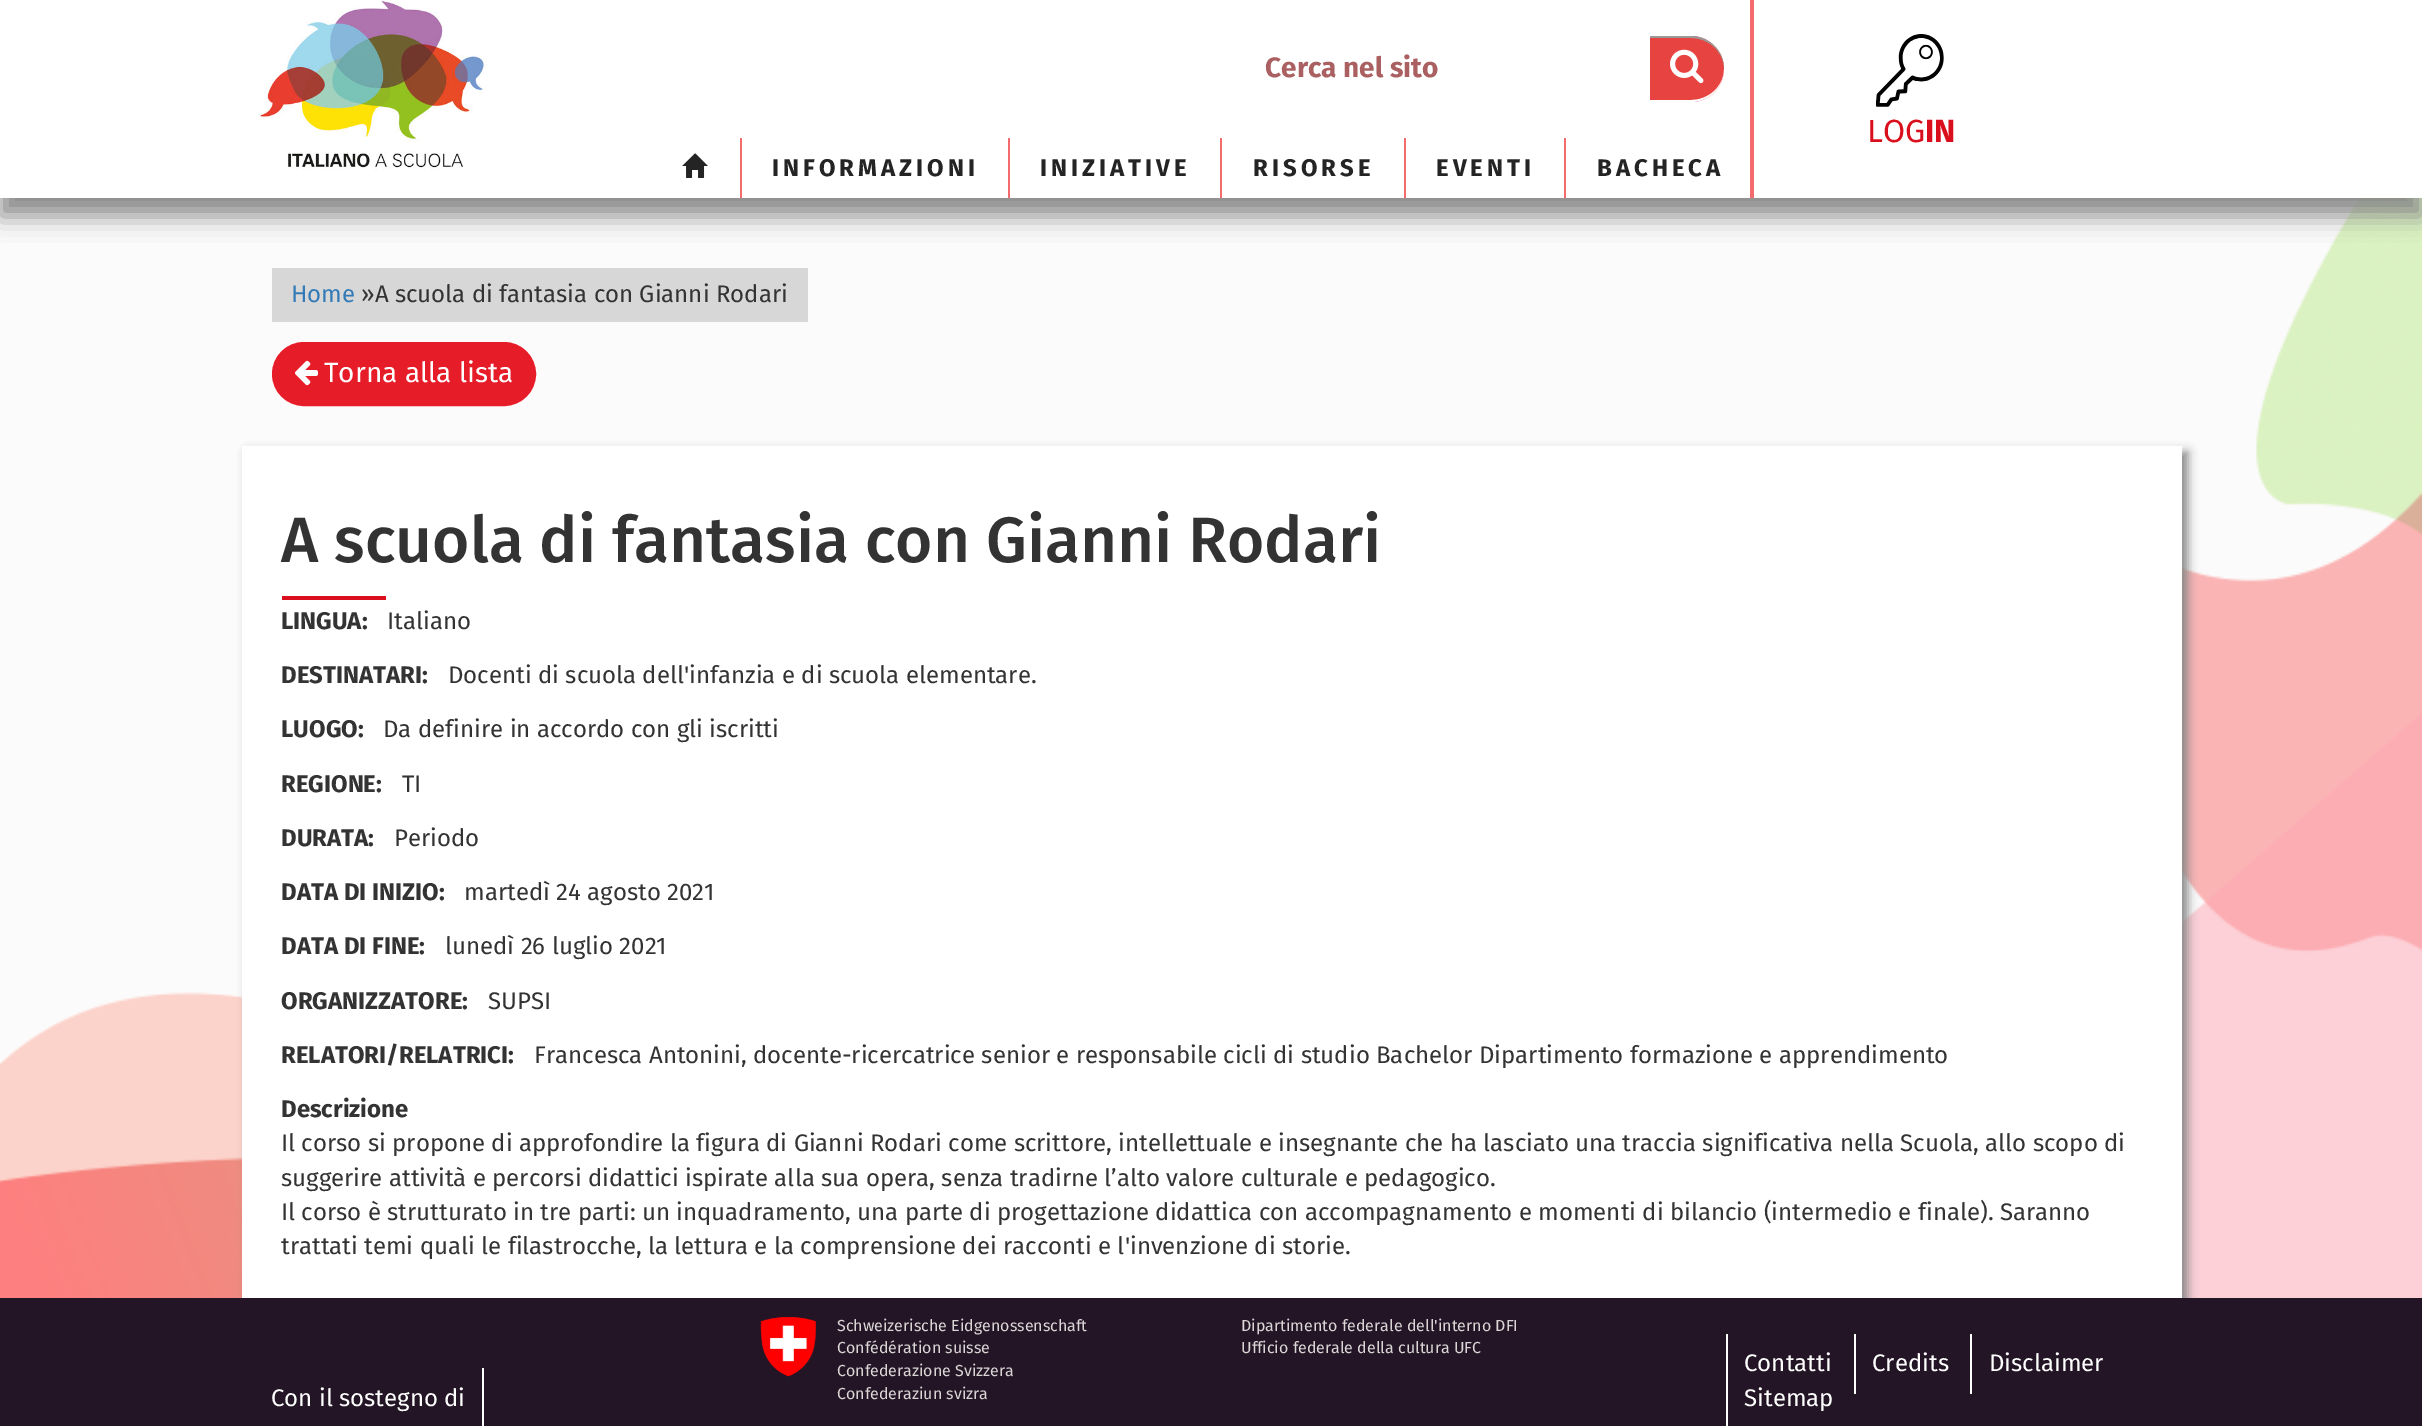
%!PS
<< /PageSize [2422 1426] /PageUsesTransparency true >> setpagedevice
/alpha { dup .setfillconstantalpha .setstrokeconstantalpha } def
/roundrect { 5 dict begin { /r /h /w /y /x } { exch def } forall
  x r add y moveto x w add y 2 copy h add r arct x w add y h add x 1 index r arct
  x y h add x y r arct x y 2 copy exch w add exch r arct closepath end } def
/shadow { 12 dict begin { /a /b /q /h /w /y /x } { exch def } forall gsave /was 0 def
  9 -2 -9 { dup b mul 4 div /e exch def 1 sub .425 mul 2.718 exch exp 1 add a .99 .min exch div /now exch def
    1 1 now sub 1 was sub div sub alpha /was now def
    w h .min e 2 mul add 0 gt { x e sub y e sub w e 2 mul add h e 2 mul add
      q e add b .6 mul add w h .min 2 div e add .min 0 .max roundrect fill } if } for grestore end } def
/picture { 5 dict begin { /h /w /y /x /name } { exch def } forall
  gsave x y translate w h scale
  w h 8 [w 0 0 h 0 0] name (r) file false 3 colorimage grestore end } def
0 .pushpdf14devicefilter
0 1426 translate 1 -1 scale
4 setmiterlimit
1 setgray
0 0 2422 1426 rectfill
(img1.rgb) 0 198 2422 1100 picture
0.533 setgray
0 6 2422 210 0 12 1 shadow
1 setgray
0 0 2422 198 rectfill
(img2.rgb) 257 0 230 170 picture
0.953 0.424 0.42 setrgbcolor
1750 0 4 198 rectfill
/FiraSans-Bold [28 0 0 -28 0 0] selectfont
0.667 0.373 0.376 setrgbcolor
1265 77 moveto (Cerca nel sito) show
0.906 0.263 0.251 setrgbcolor
newpath 1650 36 moveto 1691 36 lineto 1709 36 1724 51 1724 69 curveto 1724 87 1709 102 1691 102 curveto 1650 102 lineto closepath fill
0.6 setgray
newpath 1650 36 moveto 1650 38 lineto 1691 38 lineto 1709 38 1724 52 1724 69 curveto 1724 51 1709 36 1691 36 curveto closepath fill
1 setgray
newpath 1650 100 moveto 1650 102 lineto 1691 102 lineto 1709 102 1724 87 1724 69 curveto 1724 86 1709 100 1691 100 curveto closepath fill
(img3.rgb) 1670 49 34 35 picture
0.953 0.424 0.42 setrgbcolor
740 138 2 60 rectfill
(img4.rgb) 682 153 26 25 picture
1008 138 2 60 rectfill
/FiraSans-Bold [24 0 0 -24 0 0] selectfont
0.141 setgray
772 176 moveto 4 0 (INFORMAZIONI) ashow
0.953 0.424 0.42 setrgbcolor
1220 138 2 60 rectfill
0.141 setgray
1040 176 moveto 4 0 (INIZIATIVE) ashow
0.953 0.424 0.42 setrgbcolor
1404 138 2 60 rectfill
0.141 setgray
1253 176 moveto 4 0 (RISORSE) ashow
0.953 0.424 0.42 setrgbcolor
1564 138 2 60 rectfill
0.141 setgray
1436 176 moveto 4 0 (EVENTI) ashow
1597 176 moveto 4 0 (BACHECA) ashow
(img5.rgb) 1875 34 69 73 picture
/FiraSans-Regular [32 0 0 -32 0 0] selectfont
0.855 0.059 0.114 setrgbcolor
1867 142 moveto (LOG) show
/FiraSans-Bold [32 0 0 -32 0 0] selectfont
1925 142 moveto (IN) show
0.843 setgray
272 268 536 54 rectfill
/FiraSans-Regular [24 0 0 -24 0 0] selectfont
0.2 0.478 0.718 setrgbcolor
291 302 moveto (Home) show
0.2 setgray
361 302 moveto (»A scuola di fantasia con Gianni Rodari) show
0.906 0.11 0.161 setrgbcolor
273 343 262 62 31 roundrect gsave fill grestore
2 setlinewidth
stroke
(img6.rgb) 295 360 23 26 picture
/FiraSans-Regular [28 0 0 -28 0 0] selectfont
1 setgray
324 382 moveto (Torna alla lista) show
0.533 setgray
248 452 1940 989 0 5 1 shadow
1 setgray
242 446 1940 852 rectfill
/FiraSans-Medium [64 0 0 -64 0 0] selectfont
0.2 setgray
281 562 moveto (A scuola di fantasia con Gianni Rodari) show
0.855 0.059 0.114 setrgbcolor
282 596 104 4 rectfill
/FiraSans-Bold [24 0 0 -24 0 0] selectfont
0.2 setgray
281 629 moveto (LINGUA:) show
/FiraSans-Regular [24 0 0 -24 0 0] selectfont
387 629 moveto (Italiano) show
/FiraSans-Bold [24 0 0 -24 0 0] selectfont
281 683 moveto (DESTINATARI:) show
/FiraSans-Regular [24 0 0 -24 0 0] selectfont
448 683 moveto (Docenti di scuola dell'infanzia e di scuola elementare.) show
/FiraSans-Bold [24 0 0 -24 0 0] selectfont
281 737 moveto (LUOGO:) show
/FiraSans-Regular [24 0 0 -24 0 0] selectfont
383 737 moveto (Da definire in accordo con gli iscritti) show
/FiraSans-Bold [24 0 0 -24 0 0] selectfont
281 792 moveto (REGIONE:) show
/FiraSans-Regular [24 0 0 -24 0 0] selectfont
402 792 moveto (TI) show
/FiraSans-Bold [24 0 0 -24 0 0] selectfont
281 846 moveto (DURATA:) show
/FiraSans-Regular [24 0 0 -24 0 0] selectfont
394 846 moveto (Periodo) show
/FiraSans-Bold [24 0 0 -24 0 0] selectfont
281 900 moveto (DATA DI INIZIO:) show
/FiraSans-Regular [24 0 0 -24 0 0] selectfont
464 900 moveto (martedì 24 agosto 2021) show
/FiraSans-Bold [24 0 0 -24 0 0] selectfont
281 954 moveto (DATA DI FINE:) show
/FiraSans-Regular [24 0 0 -24 0 0] selectfont
445 954 moveto (lunedì 26 luglio 2021) show
/FiraSans-Bold [24 0 0 -24 0 0] selectfont
281 1009 moveto (ORGANIZZATORE:) show
/FiraSans-Regular [24 0 0 -24 0 0] selectfont
488 1009 moveto (SUPSI) show
/FiraSans-Bold [24 0 0 -24 0 0] selectfont
281 1063 moveto (RELATORI/RELATRICI:) show
/FiraSans-Regular [24 0 0 -24 0 0] selectfont
534 1063 moveto (Francesca Antonini, docente-ricercatrice senior e responsabile cicli di studio Bachelor Dipartimento formazione e apprendimento) show
/FiraSans-Bold [24 0 0 -24 0 0] selectfont
281 1117 moveto (Descrizione) show
/FiraSans-Regular [24 0 0 -24 0 0] selectfont
281 1151 moveto (Il corso si propone di approfondire la figura di Gianni Rodari come scrittore, intellettuale e insegnante che ha lasciato una traccia significativa nella Scuola, allo scopo di) show
281 1186 moveto (suggerire attività e percorsi didattici ispirate alla sua opera, senza tradirne l’alto valore culturale e pedagogico.) show
281 1220 moveto (Il corso è strutturato in tre parti: un inquadramento, una parte di progettazione didattica con accompagnamento e momenti di bilancio \(intermedio e finale\). Saranno) show
281 1254 moveto (trattati temi quali le filastrocche, la lettura e la comprensione dei racconti e l'invenzione di storie.) show
0.137 0.082 0.145 setrgbcolor
0 1298 2422 128 rectfill
1 setgray
271 1406 moveto (Con il sostegno di) show
482 1368 2 58 rectfill
(img7.rgb) 760 1317 56 60 picture
/FiraSans-Regular [16 0 0 -16 0 0] selectfont
0.855 0.839 0.839 setrgbcolor
837 1331 moveto (Schweizerische Eidgenossenschaft) show
837 1353 moveto (Confédération suisse) show
837 1376 moveto (Confederazione Svizzera) show
837 1399 moveto (Confederaziun svizra) show
1241 1331 moveto (Dipartimento federale dell'interno DFI) show
1241 1353 moveto (Ufficio federale della cultura UFC) show
/FiraSans-Regular [24 0 0 -24 0 0] selectfont
1 setgray
1744 1371 moveto (Contatti) show
1726 1334 2 92 rectfill
1872 1371 moveto (Credits) show
1854 1334 2 60 rectfill
1989 1371 moveto (Disclaimer) show
1970 1334 2 60 rectfill
1744 1406 moveto (Sitemap) show
.poppdf14devicefilter showpage
